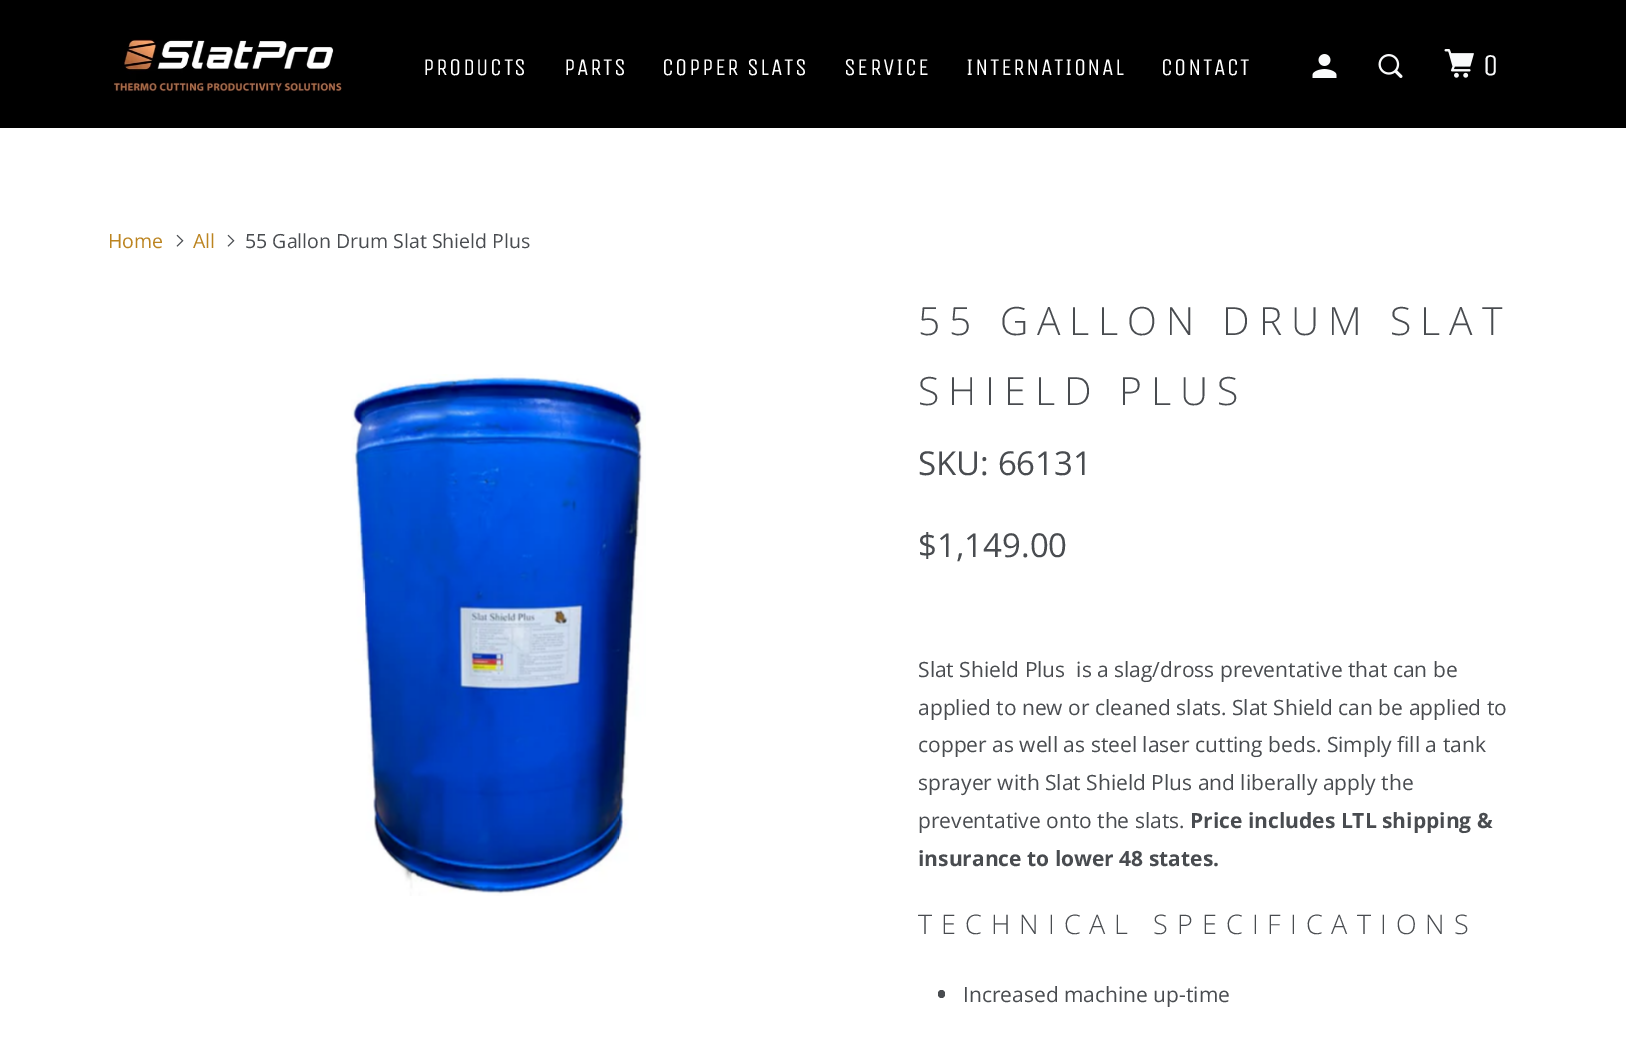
%!PS
<< /PageSize [1626 1042] >> setpagedevice
/roundrect { 5 dict begin { /r /h /w /y /x } { exch def } forall
  x r add y moveto x w add y 2 copy h add r arct x w add y h add x 1 index r arct
  x y h add x y r arct x y 2 copy exch w add exch r arct closepath end } def
/picture { 5 dict begin { /h /w /y /x /name } { exch def } forall
  gsave x y translate w h scale
  w h 8 [w 0 0 h 0 0] name (r) file false 3 colorimage grestore end } def
0 1042 translate 1 -1 scale
4 setmiterlimit
1 setgray
0 0 1626 1042 rectfill
0 setgray
0 0 1626 128 rectfill
(img1.rgb) 113 39 229 53 picture
/UnicaOne-Regular [24 0 0 -24 0 0] selectfont
1 setgray
423 75 moveto 1.5 0 (PRODUCTS) ashow
564 75 moveto 1.5 0 (PARTS) ashow
662 75 moveto 1.5 0 (COPPER SLATS) ashow
844 75 moveto 1.5 0 (SERVICE) ashow
966 75 moveto 1.5 0 (INTERNATIONAL) ashow
1161 75 moveto 1.5 0 (CONTACT) ashow
(img2.rgb) 1312 54 25 24 picture
(img3.rgb) 1378 54 25 24 picture
(img4.rgb) 1444 49 30 29 picture
/UnicaOne-Regular [30 0 0 -30 0 0] selectfont
0.976 0.98 0.984 setrgbcolor
1483 75 moveto 1.5 0 (0) ashow
/OpenSans-Regular [19.5 0 0 -19.5 0 0] selectfont
0.737 0.518 0.125 setrgbcolor
108 248 moveto (Home) show
(img5.rgb) 176 234 8 13 picture
193 248 moveto (All) show
(img5.rgb) 227 234 8 13 picture
0.286 0.298 0.314 setrgbcolor
245 248 moveto (55 Gallon Drum Slat Shield Plus) show
(img6.rgb) 351 374 295 522 picture
/OpenSans-Light [39 0 0 -39 0 0] selectfont
918 335 moveto 9 0 (55 GALLON DRUM SLAT) ashow
918 405 moveto 9 0 (SHIELD PLUS) ashow
/OpenSans-Regular [33 0 0 -33 0 0] selectfont
918 475 moveto (SKU: 66131) show
918 557 moveto ($1,149.00) show
/OpenSans-Regular [21 0 0 -21 0 0] selectfont
918 677 moveto (Slat Shield Plus  is a slag/dross preventative that can be) show
918 715 moveto (applied to new or cleaned slats. Slat Shield can be applied to) show
918 752 moveto (copper as well as steel laser cutting beds. Simply fill a tank) show
918 790 moveto (sprayer with Slat Shield Plus and liberally apply the) show
918 828 moveto (preventative onto the slats.) show
/OpenSans-Bold [21 0 0 -21 0 0] selectfont
1190 828 moveto (Price includes LTL shipping &) show
918 866 moveto (insurance to lower 48 states.) show
/OpenSans-Light [27 0 0 -27 0 0] selectfont
918 934 moveto 9 0 (TECHNICAL SPECIFICATIONS) ashow
938 990 7 8 3.5 roundrect fill
/OpenSans-Regular [21 0 0 -21 0 0] selectfont
963 1002 moveto (Increased machine up-time) show
showpage
